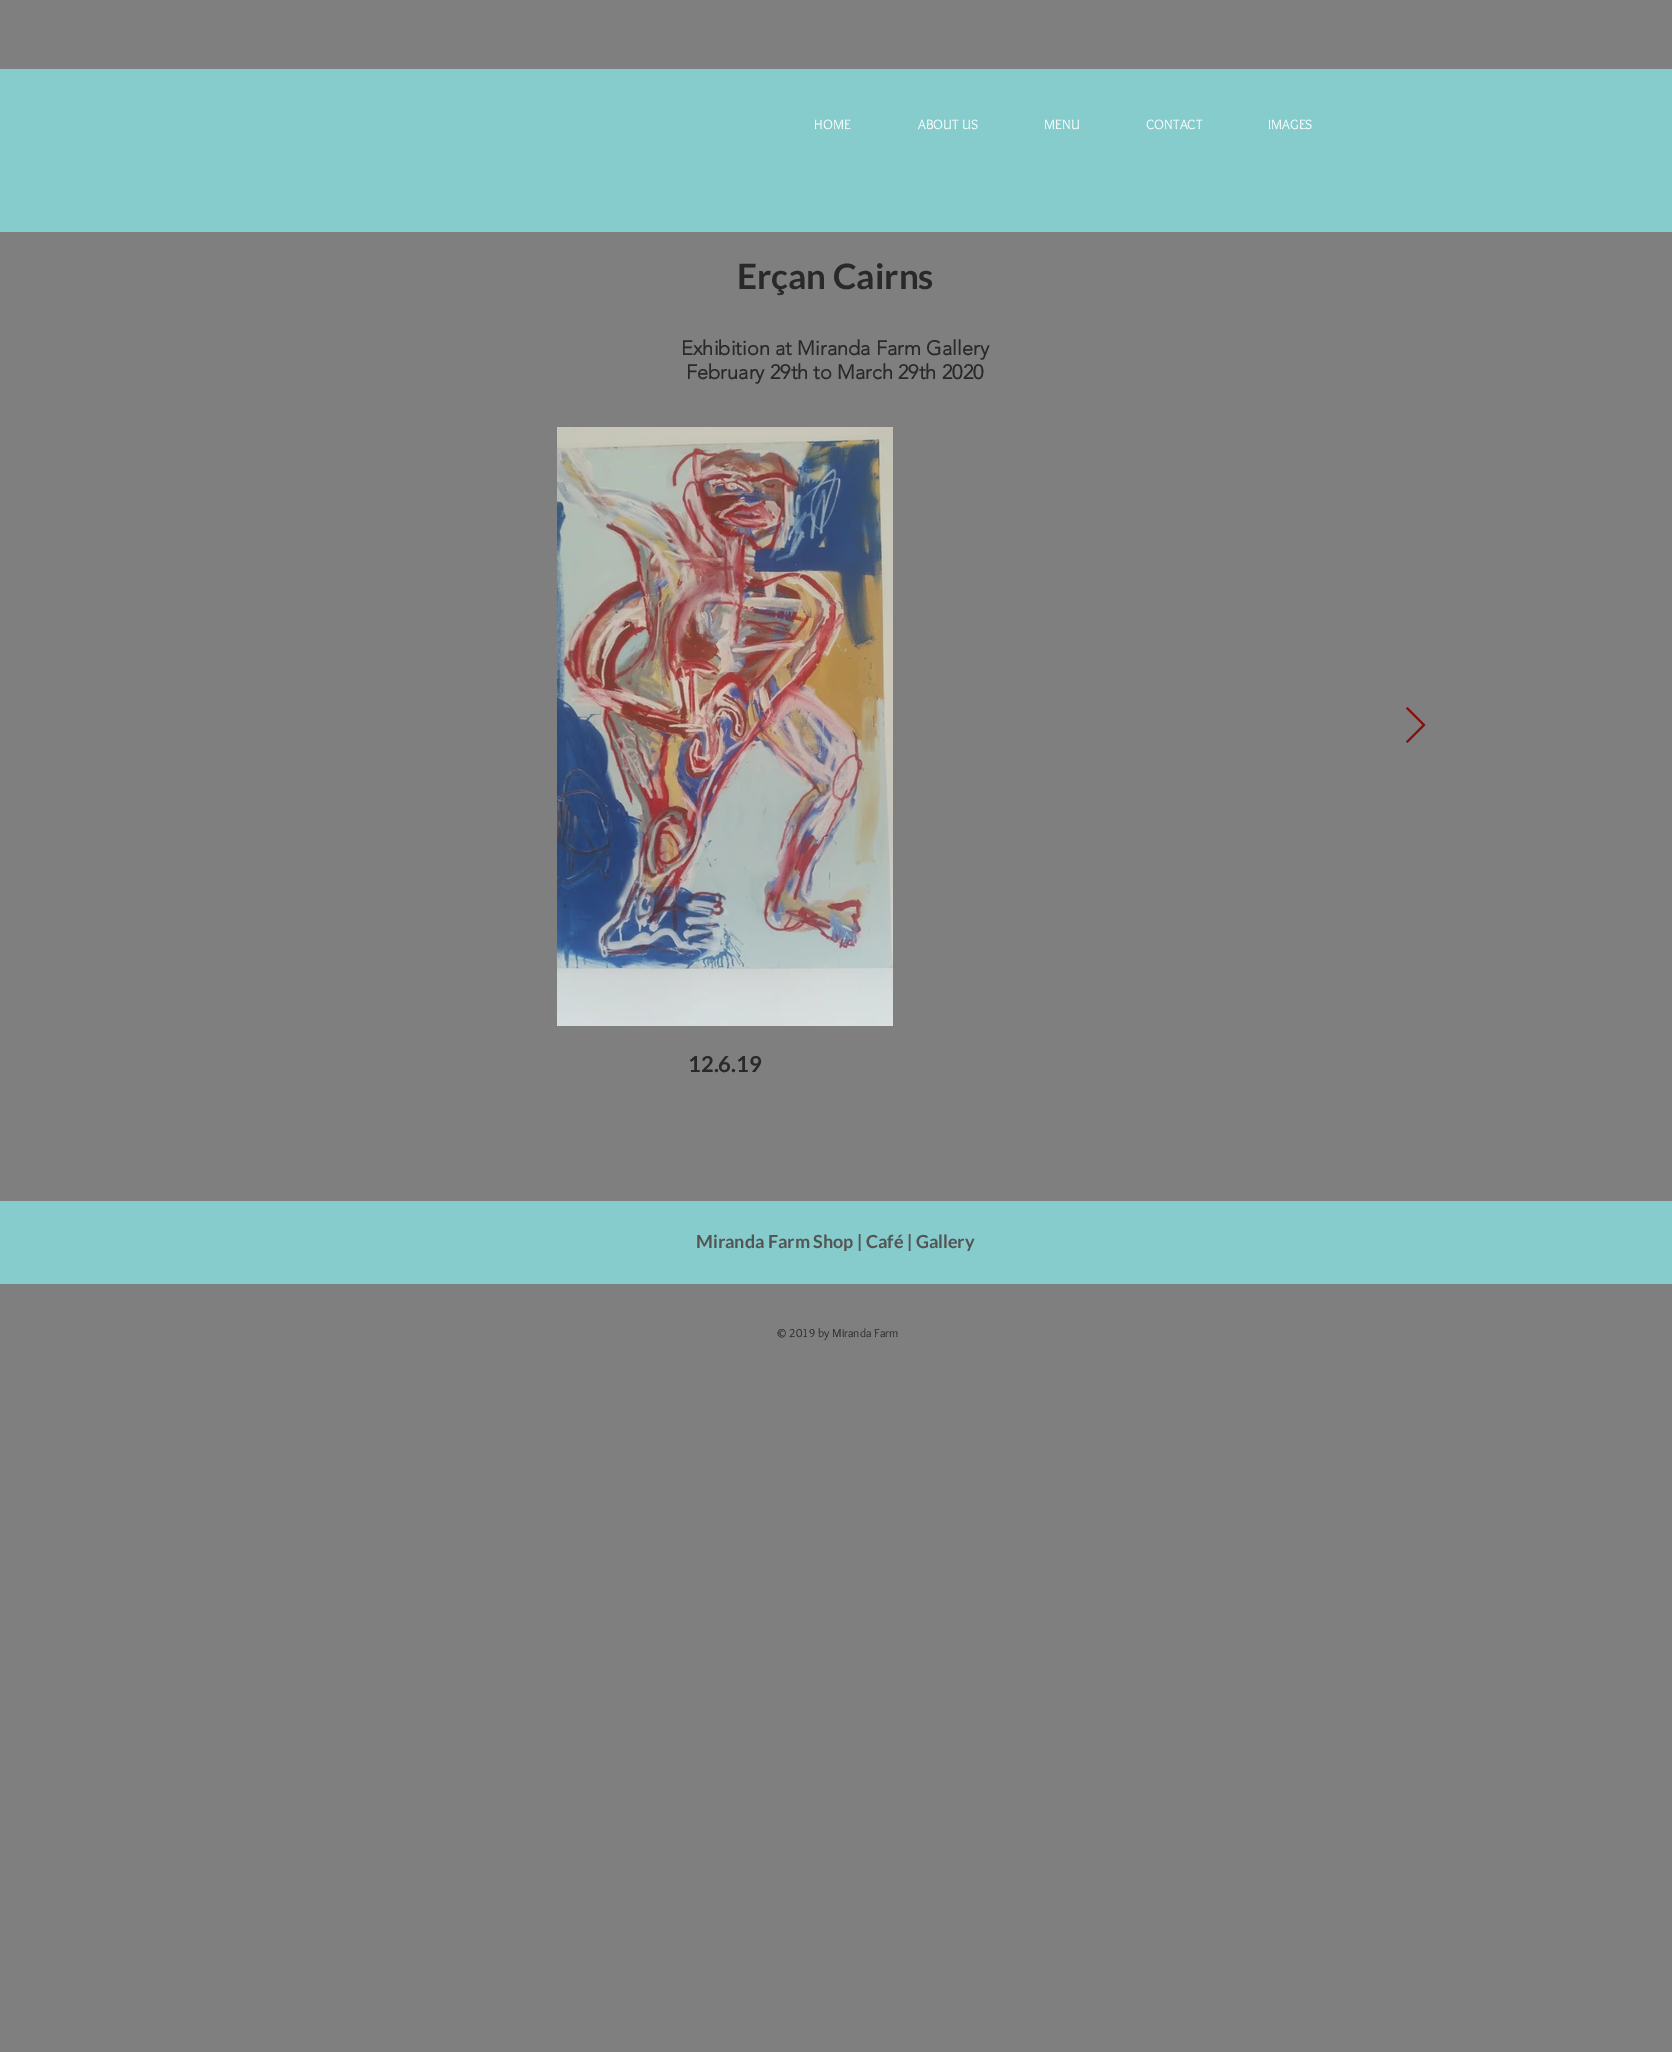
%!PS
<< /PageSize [1672 2052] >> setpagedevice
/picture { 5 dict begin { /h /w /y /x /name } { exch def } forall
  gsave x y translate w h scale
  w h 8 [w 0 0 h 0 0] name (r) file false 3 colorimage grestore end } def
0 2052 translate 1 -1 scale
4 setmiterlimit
0.498 setgray
0 0 1672 2052 rectfill
0.525 0.8 0.8 setrgbcolor
0 69 1672 163 rectfill
/Overlock-Regular [14 0 0 -14 0 0] selectfont
1 setgray
814 129 moveto (HOME) show
918 129 moveto (ABOUT US) show
1044 129 moveto (MENU) show
1146 129 moveto (CONTACT) show
1268 129 moveto (IMAGES) show
/Lato-Bold [35 0 0 -35 0 0] selectfont
0.161 setgray
737 289 moveto (Erçan Cairns) show
/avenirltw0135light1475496-Bold [20 0 0 -20 0 0] selectfont
681 355 moveto (Exhibition at Miranda Farm Gallery) show
686 379 moveto (February 29th to March 29th 2020) show
0.541 0.051 0.051 setrgbcolor
newpath 1406 708.5 moveto 1407.5 707 lineto 1425.5 725 lineto 1407.5 743 lineto 1406 741.5 lineto 1422.5 725 lineto closepath fill
(img1.rgb) 557 427 336 599 picture
/Lato-Bold [22 0 0 -22 0 0] selectfont
0.161 setgray
688 1072 moveto (12.6.19) show
0.525 0.8 0.8 setrgbcolor
0 1201 1672 83 rectfill
/Lato-Bold [18 0 0 -18 0 0] selectfont
0.329 setgray
696 1248 moveto (Miranda Farm Shop | Café | Gallery) show
/Overlock-Regular [12 0 0 -12 0 0] selectfont
0.161 setgray
776 1337 moveto (© 2019 by Miranda Farm) show
showpage
